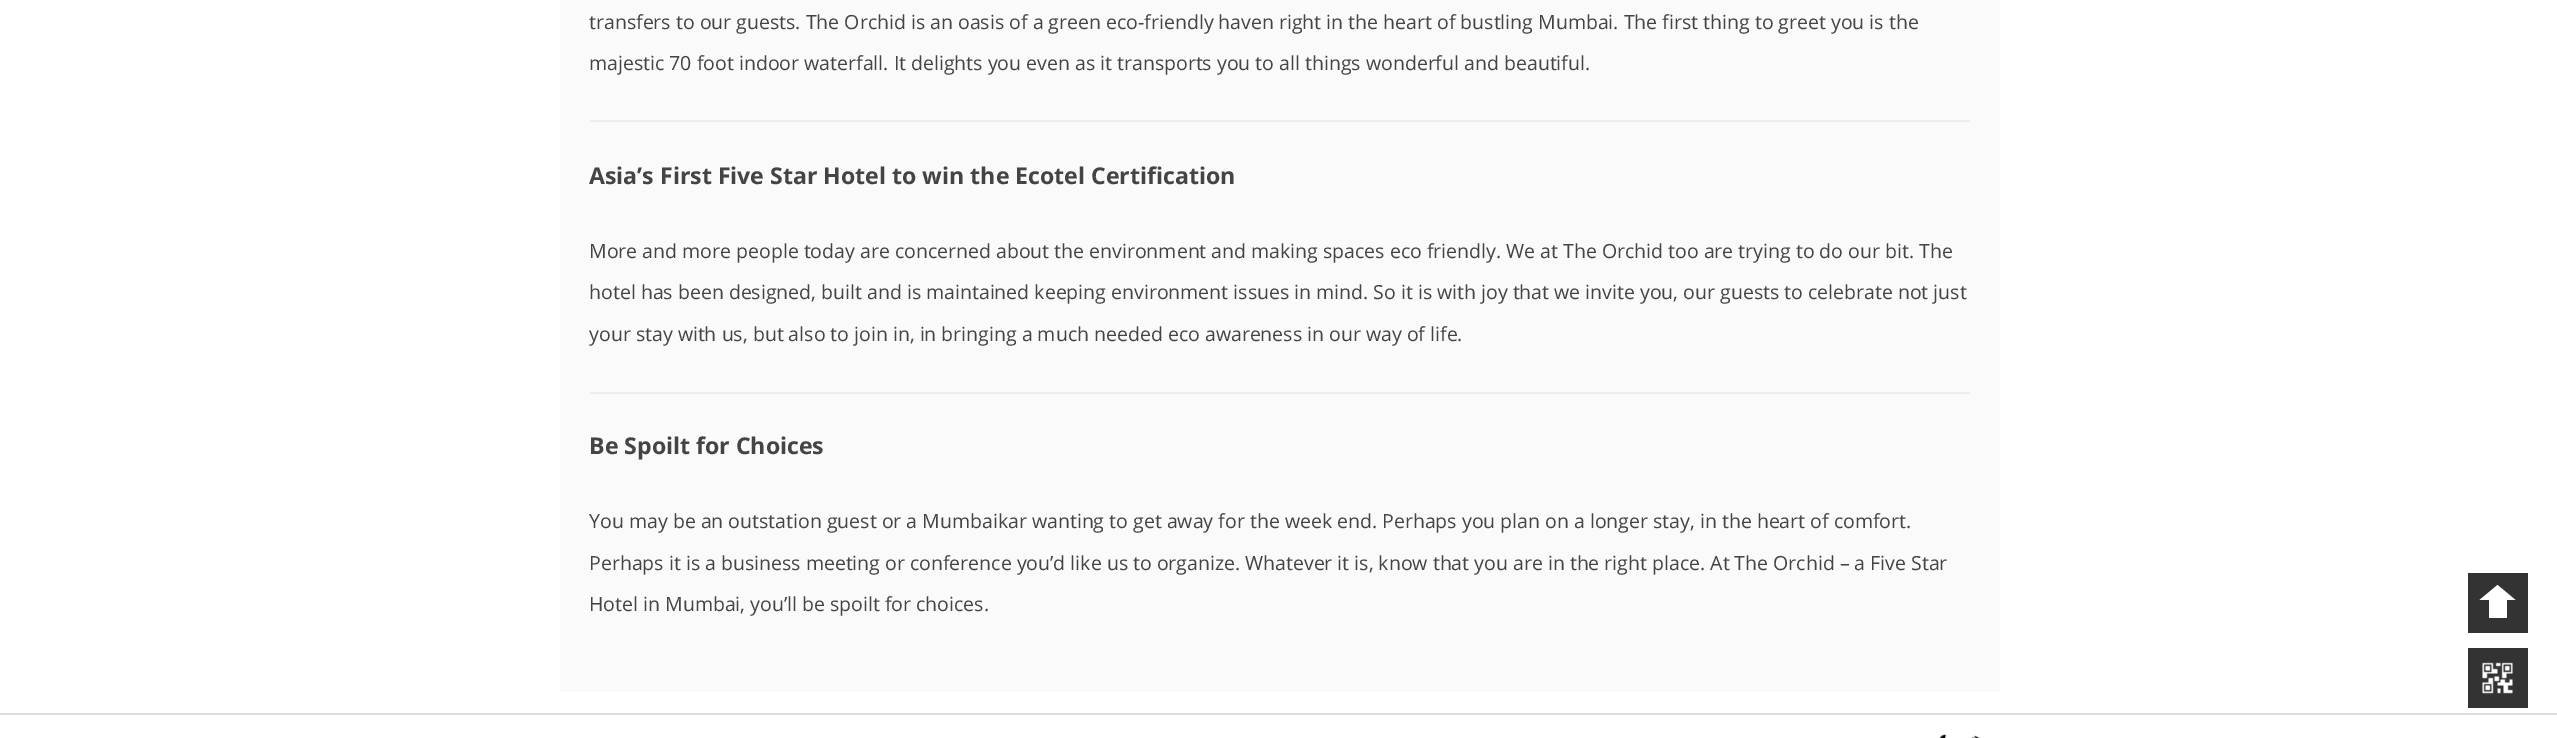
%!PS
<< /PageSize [2557 738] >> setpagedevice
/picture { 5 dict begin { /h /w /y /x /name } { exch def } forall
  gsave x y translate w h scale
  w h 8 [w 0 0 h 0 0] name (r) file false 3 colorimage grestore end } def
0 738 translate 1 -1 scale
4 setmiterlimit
1 setgray
0 0 2557 738 rectfill
0.98 setgray
560 0 1440 692 rectfill
/OpenSans-Regular [19.5 0 0 -19.5 0 0] selectfont
0.267 setgray
589 29 moveto (transfers to our guests. The Orchid is an oasis of a green eco-friendly haven right in the heart of bustling Mumbai. The first thing to greet you is the) show
589 70 moveto (majestic 70 foot indoor waterfall. It delights you even as it transports you to all things wonderful and beautiful.) show
0.929 setgray
590 120 1380 2 rectfill
/OpenSans-Bold [23.1 0 0 -23.1 0 0] selectfont
0.267 setgray
589 184 moveto (Asia’s First Five Star Hotel to win the Ecotel Certification) show
/OpenSans-Regular [19.5 0 0 -19.5 0 0] selectfont
589 258 moveto (More and more people today are concerned about the environment and making spaces eco friendly. We at The Orchid too are trying to do our bit. The) show
589 299 moveto (hotel has been designed, built and is maintained keeping environment issues in mind. So it is with joy that we invite you, our guests to celebrate not just) show
589 341 moveto (your stay with us, but also to join in, in bringing a much needed eco awareness in our way of life.) show
0.929 setgray
590 392 1380 2 rectfill
/OpenSans-Bold [23.1 0 0 -23.1 0 0] selectfont
0.267 setgray
589 454 moveto (Be Spoilt for Choices) show
/OpenSans-Regular [19.5 0 0 -19.5 0 0] selectfont
589 528 moveto (You may be an outstation guest or a Mumbaikar wanting to get away for the week end. Perhaps you plan on a longer stay, in the heart of comfort.) show
589 570 moveto (Perhaps it is a business meeting or conference you’d like us to organize. Whatever it is, know that you are in the right place. At The Orchid – a Five Star) show
589 611 moveto (Hotel in Mumbai, you’ll be spoilt for choices.) show
0.2 setgray
2468 573 60 60 rectfill
1 setgray
newpath 2515.5 600 moveto 2479.5 600 lineto 2497.5 585 lineto closepath fill
2489 600 18 18 rectfill
0.2 setgray
2468 648 60 60 rectfill
(img1.rgb) 2482 662 31 32 picture
0.867 setgray
0 713 2557 2 rectfill
(img2.rgb) 1939 734 8 4 picture
(img3.rgb) 1972 735 8 3 picture
showpage
